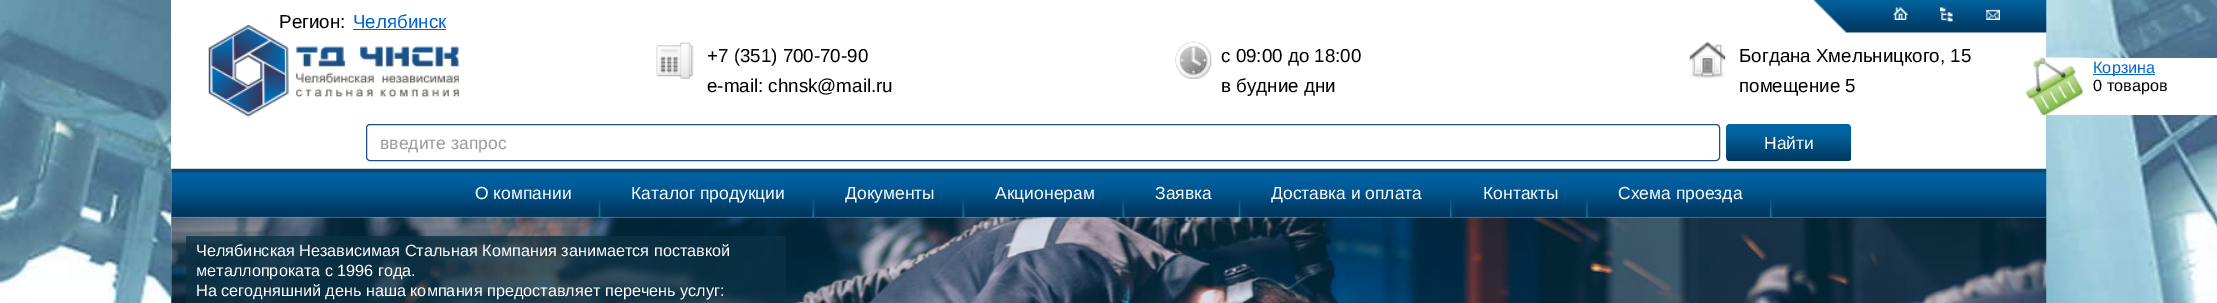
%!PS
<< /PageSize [2217 303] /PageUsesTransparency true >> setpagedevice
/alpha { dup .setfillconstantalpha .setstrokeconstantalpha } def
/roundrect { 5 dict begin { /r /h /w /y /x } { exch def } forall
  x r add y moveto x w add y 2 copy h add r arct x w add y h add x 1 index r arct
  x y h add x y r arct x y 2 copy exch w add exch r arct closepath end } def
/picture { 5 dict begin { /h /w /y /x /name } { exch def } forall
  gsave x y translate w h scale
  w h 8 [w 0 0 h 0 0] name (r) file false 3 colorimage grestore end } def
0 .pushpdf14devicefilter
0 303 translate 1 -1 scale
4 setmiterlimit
1 setgray
0 0 2217 303 rectfill
(img1.rgb) 0 0 2217 303 picture
171 0 1875 303 rectfill
(img6.rgb) 208 25 251 92 picture
/LiberationSans-Regular [18.75 0 0 -18.75 0 0] selectfont
0 setgray
279 28 moveto (Регион:) show
0 0.4 0.8 setrgbcolor
353 28 moveto (Челябинск) show
353 29 93 1 rectfill
(img2.rgb) 1813 0 234 33 picture
(img3.rgb) 1893 7 15 13 picture
(img4.rgb) 1940 7 13 15 picture
(img5.rgb) 1986 9 14 11 picture
(img7.rgb) 656 42 38 37 picture
0 setgray
707 62 moveto (+7 \(351\) 700-70-90) show
707 92 moveto (e-mail: chnsk@mail.ru) show
(img8.rgb) 1175 41 37 38 picture
1221 62 moveto (с 09:00 до 18:00) show
1221 92 moveto (в будние дни) show
(img9.rgb) 1688 41 39 38 picture
1739 62 moveto (Богдана Хмельницкого, 15) show
1739 92 moveto (помещение 5) show
0.11 0.322 0.533 setrgbcolor
366.5 124.5 1353 36 3.5 roundrect stroke
/LiberationSans-Regular [17.5 0 0 -17.5 0 0] selectfont
0.6 setgray
380 149 moveto (введите запрос) show
0 0.4 0.639 setrgbcolor
1726 124 125 37 4 roundrect fill
(img10.rgb) 1726 127 126 35 picture
1 setgray
1764 149 moveto (Найти) show
(img11.rgb) 171 168 1876 50 picture
(img12.rgb) 598 196 4 22 picture
475 199 moveto (О компании) show
(img13.rgb) 812 197 3 21 picture
631 199 moveto (Каталог продукции) show
(img13.rgb) 962 197 3 21 picture
845 199 moveto (Документы) show
(img13.rgb) 1122 197 3 21 picture
995 199 moveto (Акционерам) show
(img12.rgb) 1238 196 4 22 picture
1155 199 moveto (Заявка) show
(img14.rgb) 1450 196 3 22 picture
1271 199 moveto (Доставка и оплата) show
(img15.rgb) 1586 197 3 21 picture
1483 199 moveto (Контакты) show
(img14.rgb) 1770 196 3 22 picture
1618 199 moveto (Схема проезда) show
(img16.rgb) 171 217 1876 86 picture
0.1 alpha
0 0.4 0.8 setrgbcolor
171 218 1875 85 rectfill
0.78 alpha
0.047 0.192 0.267 setrgbcolor
186 236 600 67 rectfill
/LiberationSans-Regular [16.25 0 0 -16.25 0 0] selectfont
1 alpha
1 setgray
196 256 moveto (Челябинская Независимая Стальная Компания занимается поставкой) show
196 276 moveto (металлопроката с 1996 года.) show
196 296 moveto (На сегодняшний день наша компания предоставляет перечень услуг:) show
2046 58 171 57 rectfill
(img17.rgb) 2026 57 57 58 picture
0 0.4 0.8 setrgbcolor
2093 74 62 1 rectfill
2093 73 moveto (Корзина) show
0 setgray
2093 91 moveto (0 товаров) show
.poppdf14devicefilter showpage
